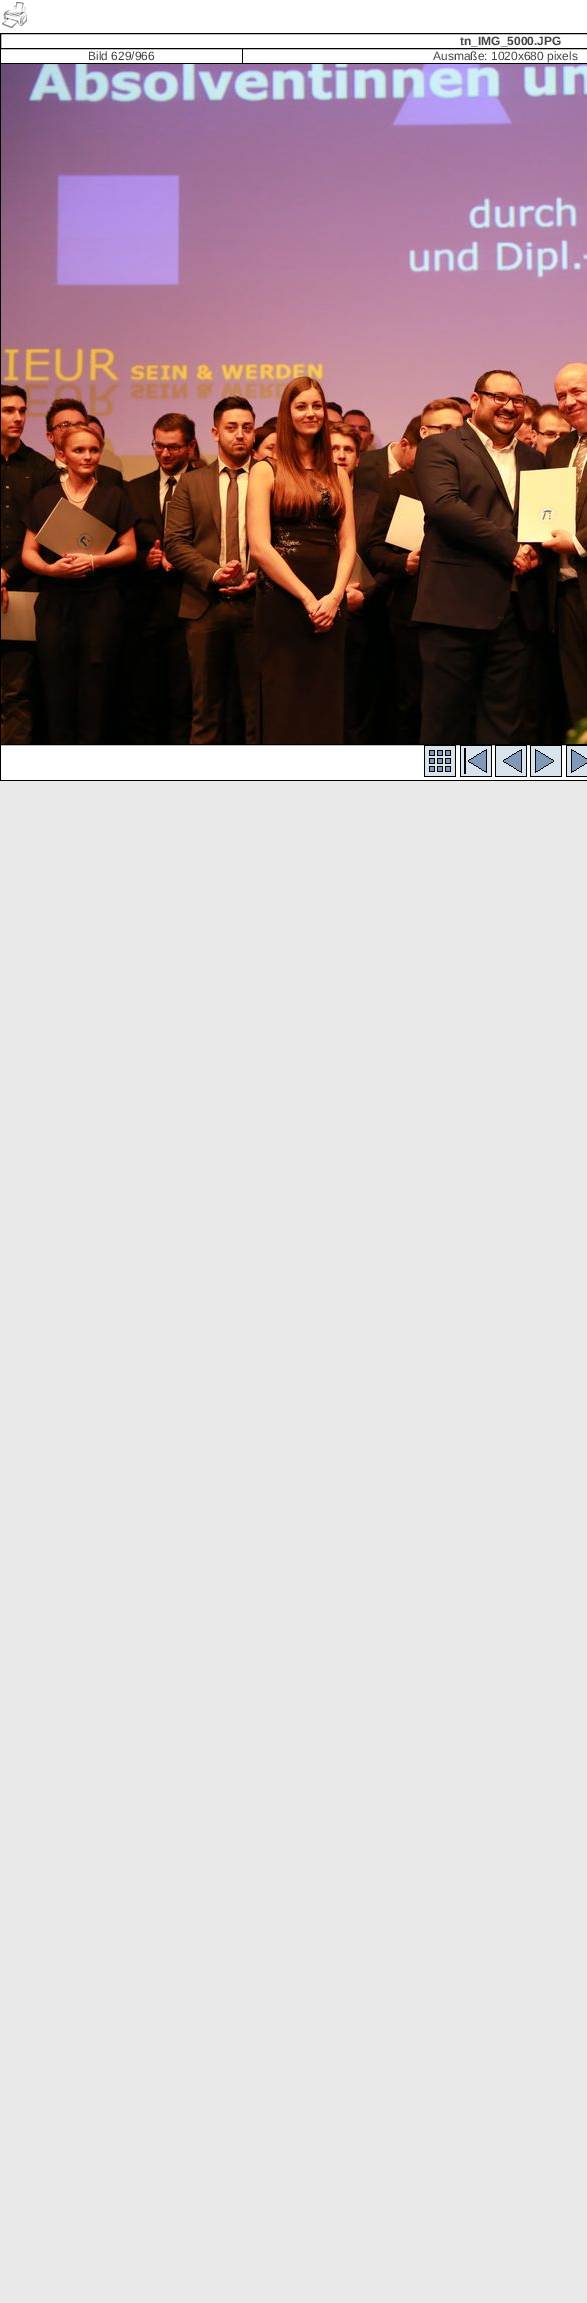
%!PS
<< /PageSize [587 2303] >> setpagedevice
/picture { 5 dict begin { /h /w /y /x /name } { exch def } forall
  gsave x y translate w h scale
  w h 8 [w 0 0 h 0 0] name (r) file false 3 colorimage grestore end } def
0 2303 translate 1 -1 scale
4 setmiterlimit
0.914 setgray
0 0 587 2303 rectfill
1 setgray
0 0 587 780 rectfill
(img1.rgb) 2 2 25 26 picture
0 setgray
0.5 33.5 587 15 rectstroke
/LiberationSans-Bold [12 0 0 -12 0 0] selectfont
0.267 setgray
460 45 moveto (tn_IMG_5000.JPG) show
0 setgray
0 49 1 14 rectfill
/LiberationSans-Regular [12 0 0 -12 0 0] selectfont
0.267 setgray
88 60 moveto (Bild 629/966) show
0 setgray
242 49 1 14 rectfill
0.267 setgray
433 60 moveto (Ausmaße: 1020x680 pixels) show
0 setgray
0.5 63.5 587 681 rectstroke
(img2.rgb) 1 64 586 680 picture
0 780 587 1 rectfill
0 745 1 36 rectfill
(img3.rgb) 424 745 32 32 picture
(img4.rgb) 460 745 32 32 picture
(img5.rgb) 495 745 32 32 picture
(img6.rgb) 530 745 32 32 picture
(img7.rgb) 566 745 21 32 picture
showpage
